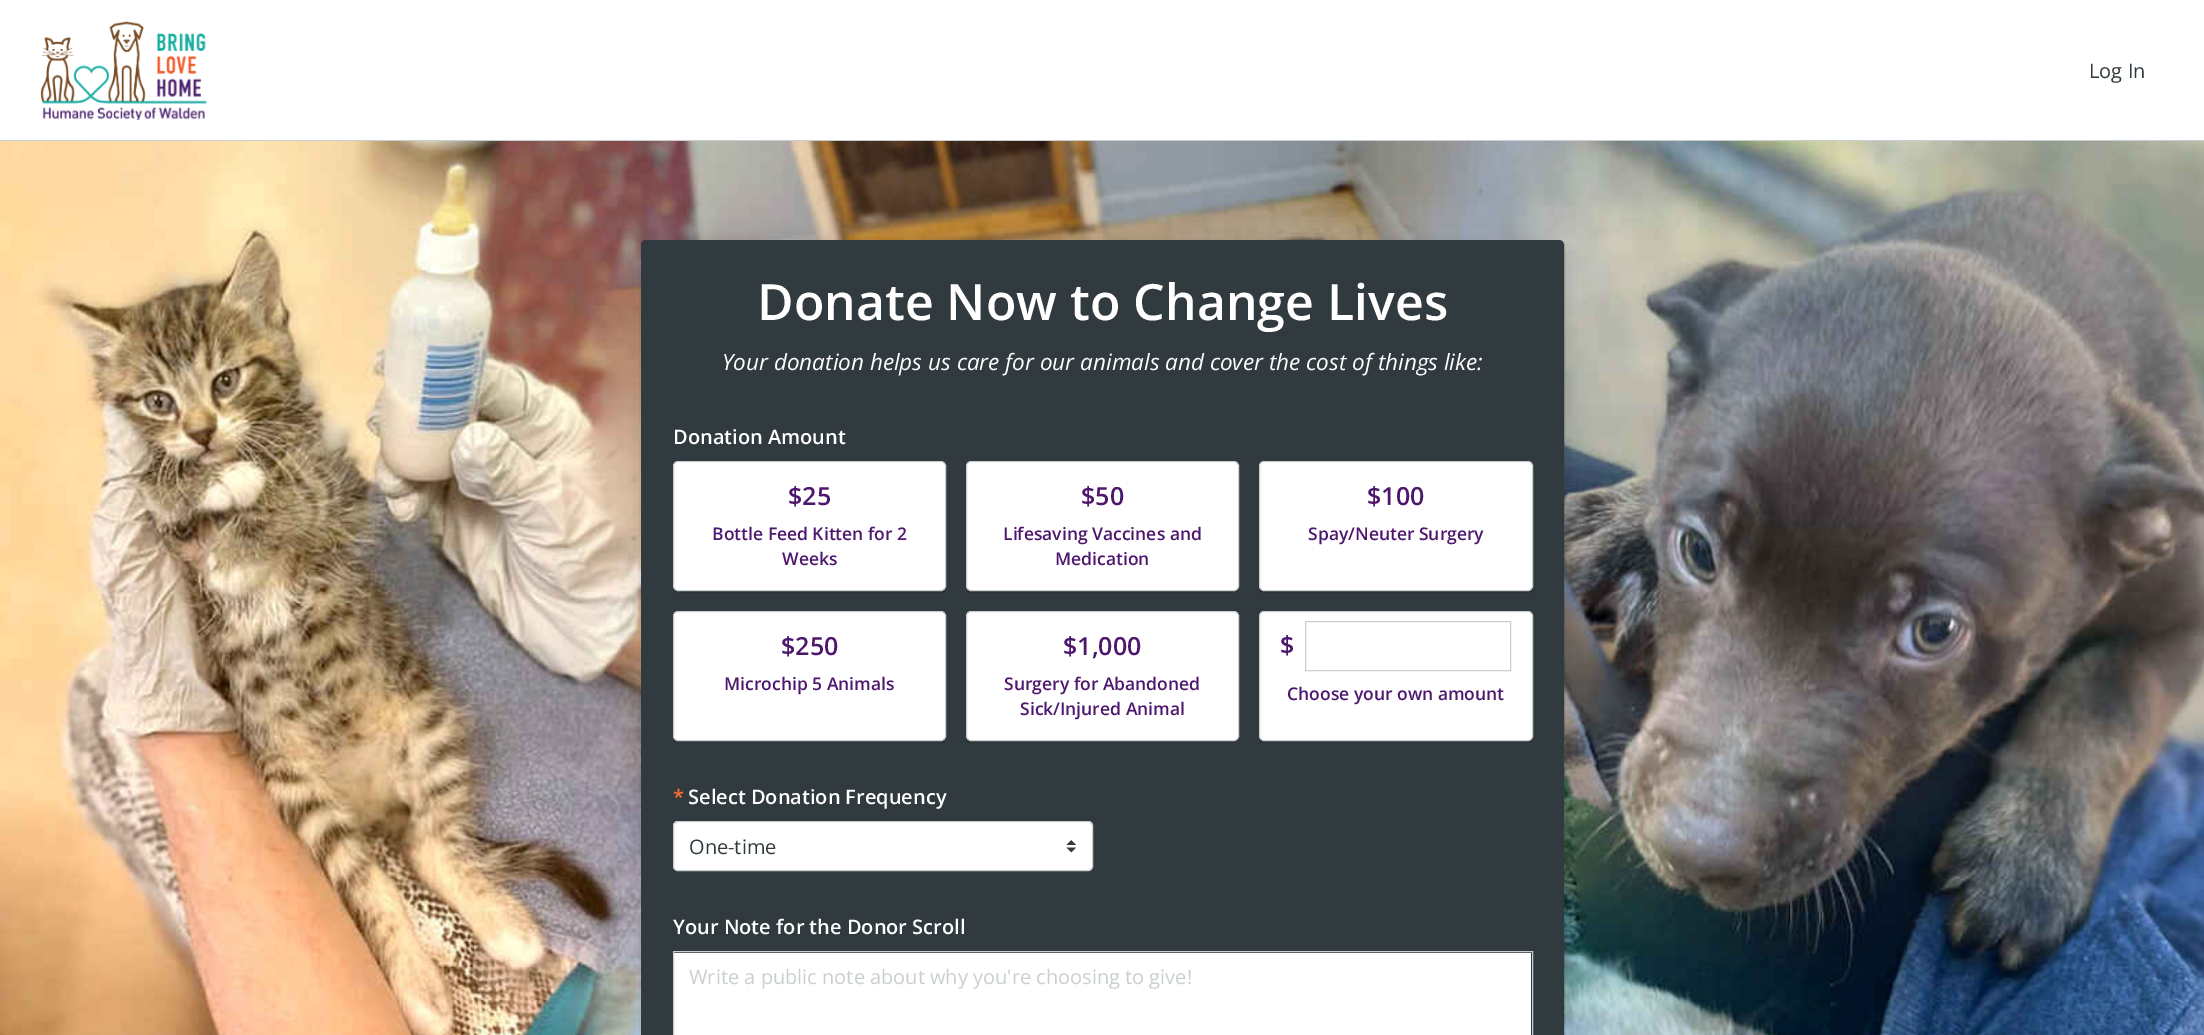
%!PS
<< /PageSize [2204 1035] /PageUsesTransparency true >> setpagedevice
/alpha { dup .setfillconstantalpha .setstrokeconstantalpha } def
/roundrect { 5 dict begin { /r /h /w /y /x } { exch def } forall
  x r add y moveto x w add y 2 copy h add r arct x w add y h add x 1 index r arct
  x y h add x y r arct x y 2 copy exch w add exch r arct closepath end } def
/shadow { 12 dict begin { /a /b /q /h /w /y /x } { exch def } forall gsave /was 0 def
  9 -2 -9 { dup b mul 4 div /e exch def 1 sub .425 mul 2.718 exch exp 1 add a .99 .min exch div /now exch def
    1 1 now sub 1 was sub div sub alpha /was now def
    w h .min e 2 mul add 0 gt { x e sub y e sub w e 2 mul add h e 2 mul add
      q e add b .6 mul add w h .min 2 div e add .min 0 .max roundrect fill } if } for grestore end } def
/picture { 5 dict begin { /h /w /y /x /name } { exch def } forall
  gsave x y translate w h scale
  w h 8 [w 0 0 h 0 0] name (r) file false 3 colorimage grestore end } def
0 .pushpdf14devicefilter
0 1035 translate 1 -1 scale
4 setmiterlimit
1 setgray
0 0 2204 1035 rectfill
0.788 0.808 0.82 setrgbcolor
0 140 2204 1 rectfill
(img1.rgb) 40 21 168 99 picture
/OpenSans-Regular [20 0 0 -20 0 0] selectfont
0.192 0.227 0.243 setrgbcolor
2089 78 moveto (Log In) show
(img2.rgb) 0 141 2204 894 picture
0.114 0.149 0.169 setrgbcolor
641 245 923 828 5 11 0.2 shadow
0.192 0.227 0.243 setrgbcolor
641.5 240.5 922 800 4.5 roundrect gsave fill grestore
stroke
/OpenSans-SemiBold [50 0 0 -50 0 0] selectfont
1 setgray
757 320 moveto (Donate Now to Change Lives) show
/OpenSans-Italic [22.5 0 0 -22.5 0 0] selectfont
722 370 moveto (Your donation helps us care for our animals and cover the cost of things like:) show
/OpenSans-SemiBold [20 0 0 -20 0 0] selectfont
673 444 moveto (Donation Amount) show
0.173 0.204 0.22 setrgbcolor
newpath 673 588 moveto 673 591 675 593 678 593 curveto 941 593 lineto 944 593 946 591 946 588 curveto 945 590 943 591 941 591 curveto 678 591 lineto 676 591 674 590 673 588 curveto closepath fill
1 setgray
673.5 461.5 272 129 4.5 roundrect gsave fill grestore
0.788 0.808 0.82 setrgbcolor
stroke
/OpenSans-SemiBold [25 0 0 -25 0 0] selectfont
0.302 0.09 0.431 setrgbcolor
788 505 moveto ($25) show
/OpenSans-SemiBold [17.5 0 0 -17.5 0 0] selectfont
712 540 moveto (Bottle Feed Kitten for 2) show
782 565 moveto (Weeks) show
0.173 0.204 0.22 setrgbcolor
newpath 966 466 moveto 966 588 lineto 966 591 968 593 971 593 curveto 1234 593 lineto 1237 593 1239 591 1239 588 curveto 1239 466 lineto 1239 586 lineto 1239 589 1237 591 1234 591 curveto 971 591 lineto 968 591 966 589 966 586 curveto closepath fill
1 setgray
966.5 461.5 272 129 4.5 roundrect gsave fill grestore
0.788 0.808 0.82 setrgbcolor
stroke
/OpenSans-SemiBold [25 0 0 -25 0 0] selectfont
0.302 0.09 0.431 setrgbcolor
1081 505 moveto ($50) show
/OpenSans-SemiBold [17.5 0 0 -17.5 0 0] selectfont
1003 540 moveto (Lifesaving Vaccines and) show
1055 565 moveto (Medication) show
0.173 0.204 0.22 setrgbcolor
newpath 1259 588 moveto 1259 591 1261 593 1264 593 curveto 1528 593 lineto 1531 593 1533 591 1533 588 curveto 1533 468 lineto 1532 466 lineto 1532 566 lineto 1532 576 1536 591 1528 591 curveto 1264 591 lineto 1262 591 1260 590 1259 588 curveto closepath fill
1 setgray
1259.5 461.5 273 129 4.5 roundrect gsave fill grestore
0.788 0.808 0.82 setrgbcolor
stroke
/OpenSans-SemiBold [25 0 0 -25 0 0] selectfont
0.302 0.09 0.431 setrgbcolor
1367 505 moveto ($100) show
/OpenSans-SemiBold [17.5 0 0 -17.5 0 0] selectfont
1308 540 moveto (Spay/Neuter Surgery) show
0.173 0.204 0.22 setrgbcolor
newpath 673 738 moveto 673 741 675 743 678 743 curveto 941 743 lineto 944 743 946 741 946 738 curveto 945 740 943 741 941 741 curveto 678 741 lineto 676 741 674 740 673 738 curveto closepath fill
1 setgray
673.5 611.5 272 129 4.5 roundrect gsave fill grestore
0.788 0.808 0.82 setrgbcolor
stroke
/OpenSans-SemiBold [25 0 0 -25 0 0] selectfont
0.302 0.09 0.431 setrgbcolor
781 655 moveto ($250) show
/OpenSans-SemiBold [17.5 0 0 -17.5 0 0] selectfont
724 690 moveto (Microchip 5 Animals) show
0.173 0.204 0.22 setrgbcolor
newpath 966 616 moveto 966 738 lineto 966 741 968 743 971 743 curveto 1234 743 lineto 1237 743 1239 741 1239 738 curveto 1239 616 lineto 1239 736 lineto 1239 739 1237 741 1234 741 curveto 971 741 lineto 968 741 966 739 966 736 curveto closepath fill
1 setgray
966.5 611.5 272 129 4.5 roundrect gsave fill grestore
0.788 0.808 0.82 setrgbcolor
stroke
/OpenSans-SemiBold [25 0 0 -25 0 0] selectfont
0.302 0.09 0.431 setrgbcolor
1063 655 moveto ($1,000) show
/OpenSans-SemiBold [17.5 0 0 -17.5 0 0] selectfont
1004 690 moveto (Surgery for Abandoned) show
1020 715 moveto (Sick/Injured Animal) show
0.173 0.204 0.22 setrgbcolor
newpath 1259 738 moveto 1259 741 1261 743 1264 743 curveto 1528 743 lineto 1531 743 1533 741 1533 738 curveto 1533 618 lineto 1532 616 lineto 1532 716 lineto 1532 726 1536 741 1528 741 curveto 1264 741 lineto 1262 741 1260 740 1259 738 curveto closepath fill
1 setgray
1259.5 611.5 273 129 4.5 roundrect gsave fill grestore
0.788 0.808 0.82 setrgbcolor
stroke
/OpenSans-SemiBold [25 0 0 -25 0 0] selectfont
0.302 0.09 0.431 setrgbcolor
1280 654 moveto ($) show
0.788 0.808 0.82 setrgbcolor
1305.5 621.5 205 49 rectstroke
/OpenSans-SemiBold [17.5 0 0 -17.5 0 0] selectfont
0.302 0.09 0.431 setrgbcolor
1287 700 moveto (Choose your own amount) show
/OpenSans-SemiBold [20 0 0 -20 0 0] selectfont
1 0.427 0.2 setrgbcolor
673 804 moveto (*) show
1 setgray
688 804 moveto (Select Donation Frequency) show
673 821 420 50 5 roundrect fill
(img3.rgb) 1066 840 10 13 picture
0.788 0.808 0.82 setrgbcolor
673.5 821.5 419 49 4.5 roundrect stroke
/OpenSans-Regular [20 0 0 -20 0 0] selectfont
0.192 0.227 0.243 setrgbcolor
689 854 moveto (One-time) show
/OpenSans-SemiBold [20 0 0 -20 0 0] selectfont
1 setgray
673 934 moveto (Your Note for the Donor Scroll) show
674 953 857 82 rectfill
0.788 0.808 0.82 setrgbcolor
673.5 951.5 859 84 rectstroke
/OpenSans-Regular [20 0 0 -20 0 0] selectfont
689 984 moveto (Write a public note about why you're choosing to give!) show
.poppdf14devicefilter showpage
